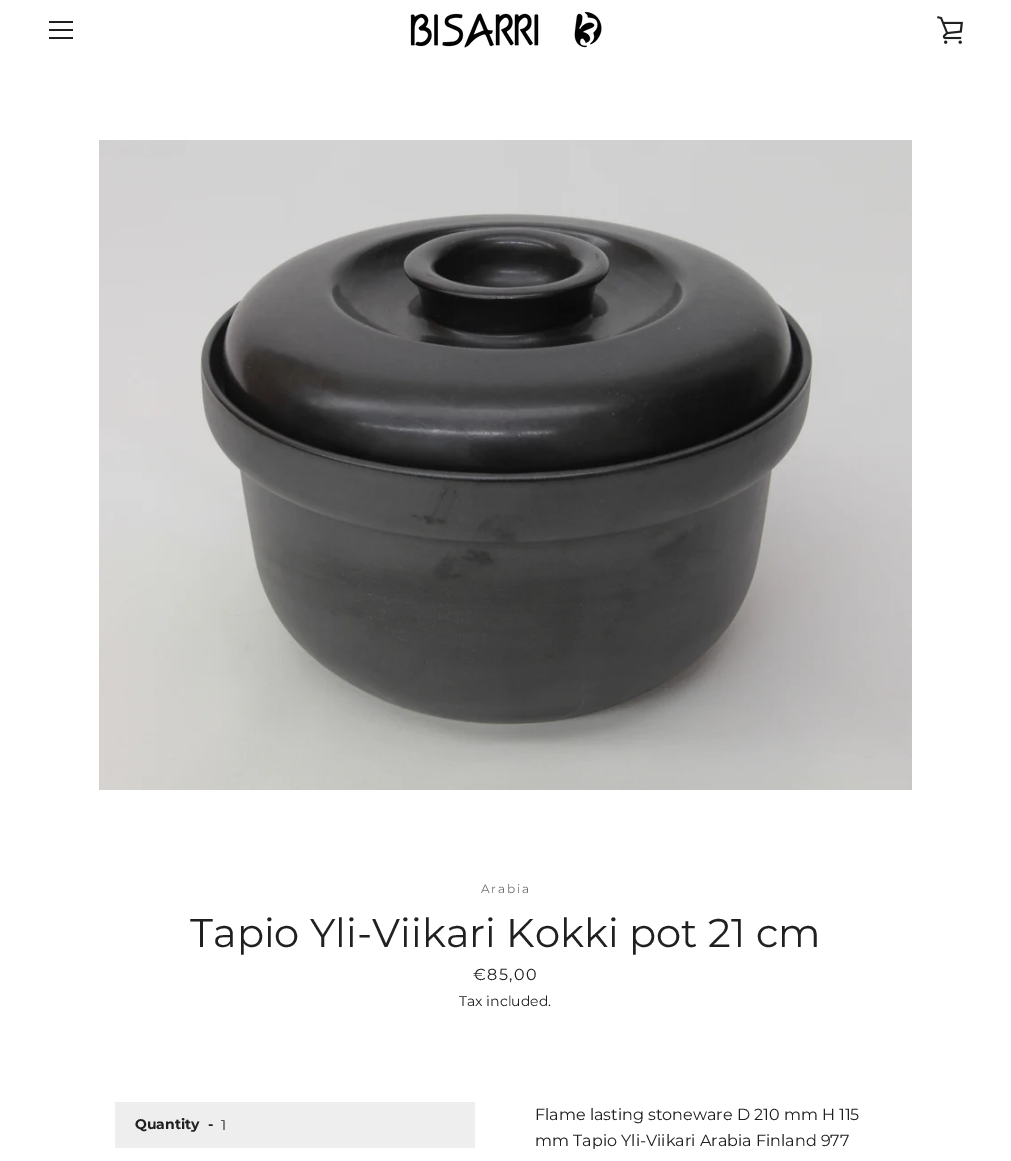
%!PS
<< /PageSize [1011 1161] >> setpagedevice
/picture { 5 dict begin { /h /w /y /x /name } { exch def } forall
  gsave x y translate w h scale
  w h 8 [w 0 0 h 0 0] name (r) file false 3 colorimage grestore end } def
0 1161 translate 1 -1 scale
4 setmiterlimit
1 setgray
0 0 1011 1161 rectfill
0.122 0.125 0.129 setrgbcolor
49 21 24 2 rectfill
49 29 24 2 rectfill
49 37 24 2 rectfill
(img1.rgb) 410 11 192 37 picture
(img2.rgb) 937 16 26 28 picture
(img3.rgb) 99 140 813 650 picture
/Montserrat-Regular [12 0 0 -12 0 0] selectfont
0.412 0.424 0.439 setrgbcolor
481 893 moveto 1.75 0 (Arabia) ashow
/Montserrat-Regular [40 0 0 -40 0 0] selectfont
0.122 0.125 0.129 setrgbcolor
190 947 moveto (Tapio Yli-Viikari Kokki pot 21 cm) show
/Montserrat-Regular [16 0 0 -16 0 0] selectfont
473 980 moveto 1.5 0 (€85,00) ashow
/Montserrat-Regular [14 0 0 -14 0 0] selectfont
459 1006 moveto (Tax included.) show
0.933 setgray
115 1102 360 46 rectfill
/Montserrat-Bold [14 0 0 -14 0 0] selectfont
0.122 0.125 0.129 setrgbcolor
135 1129 moveto (Quantity) show
208 1129 moveto (-) show
/Montserrat-Regular [14 0 0 -14 0 0] selectfont
221 1130 moveto (1) show
/Montserrat-Regular [16 0 0 -16 0 0] selectfont
535 1120 moveto (Flame lasting stoneware D 210 mm H 115) show
535 1146 moveto (mm Tapio Yli-Viikari Arabia Finland 977) show
showpage
